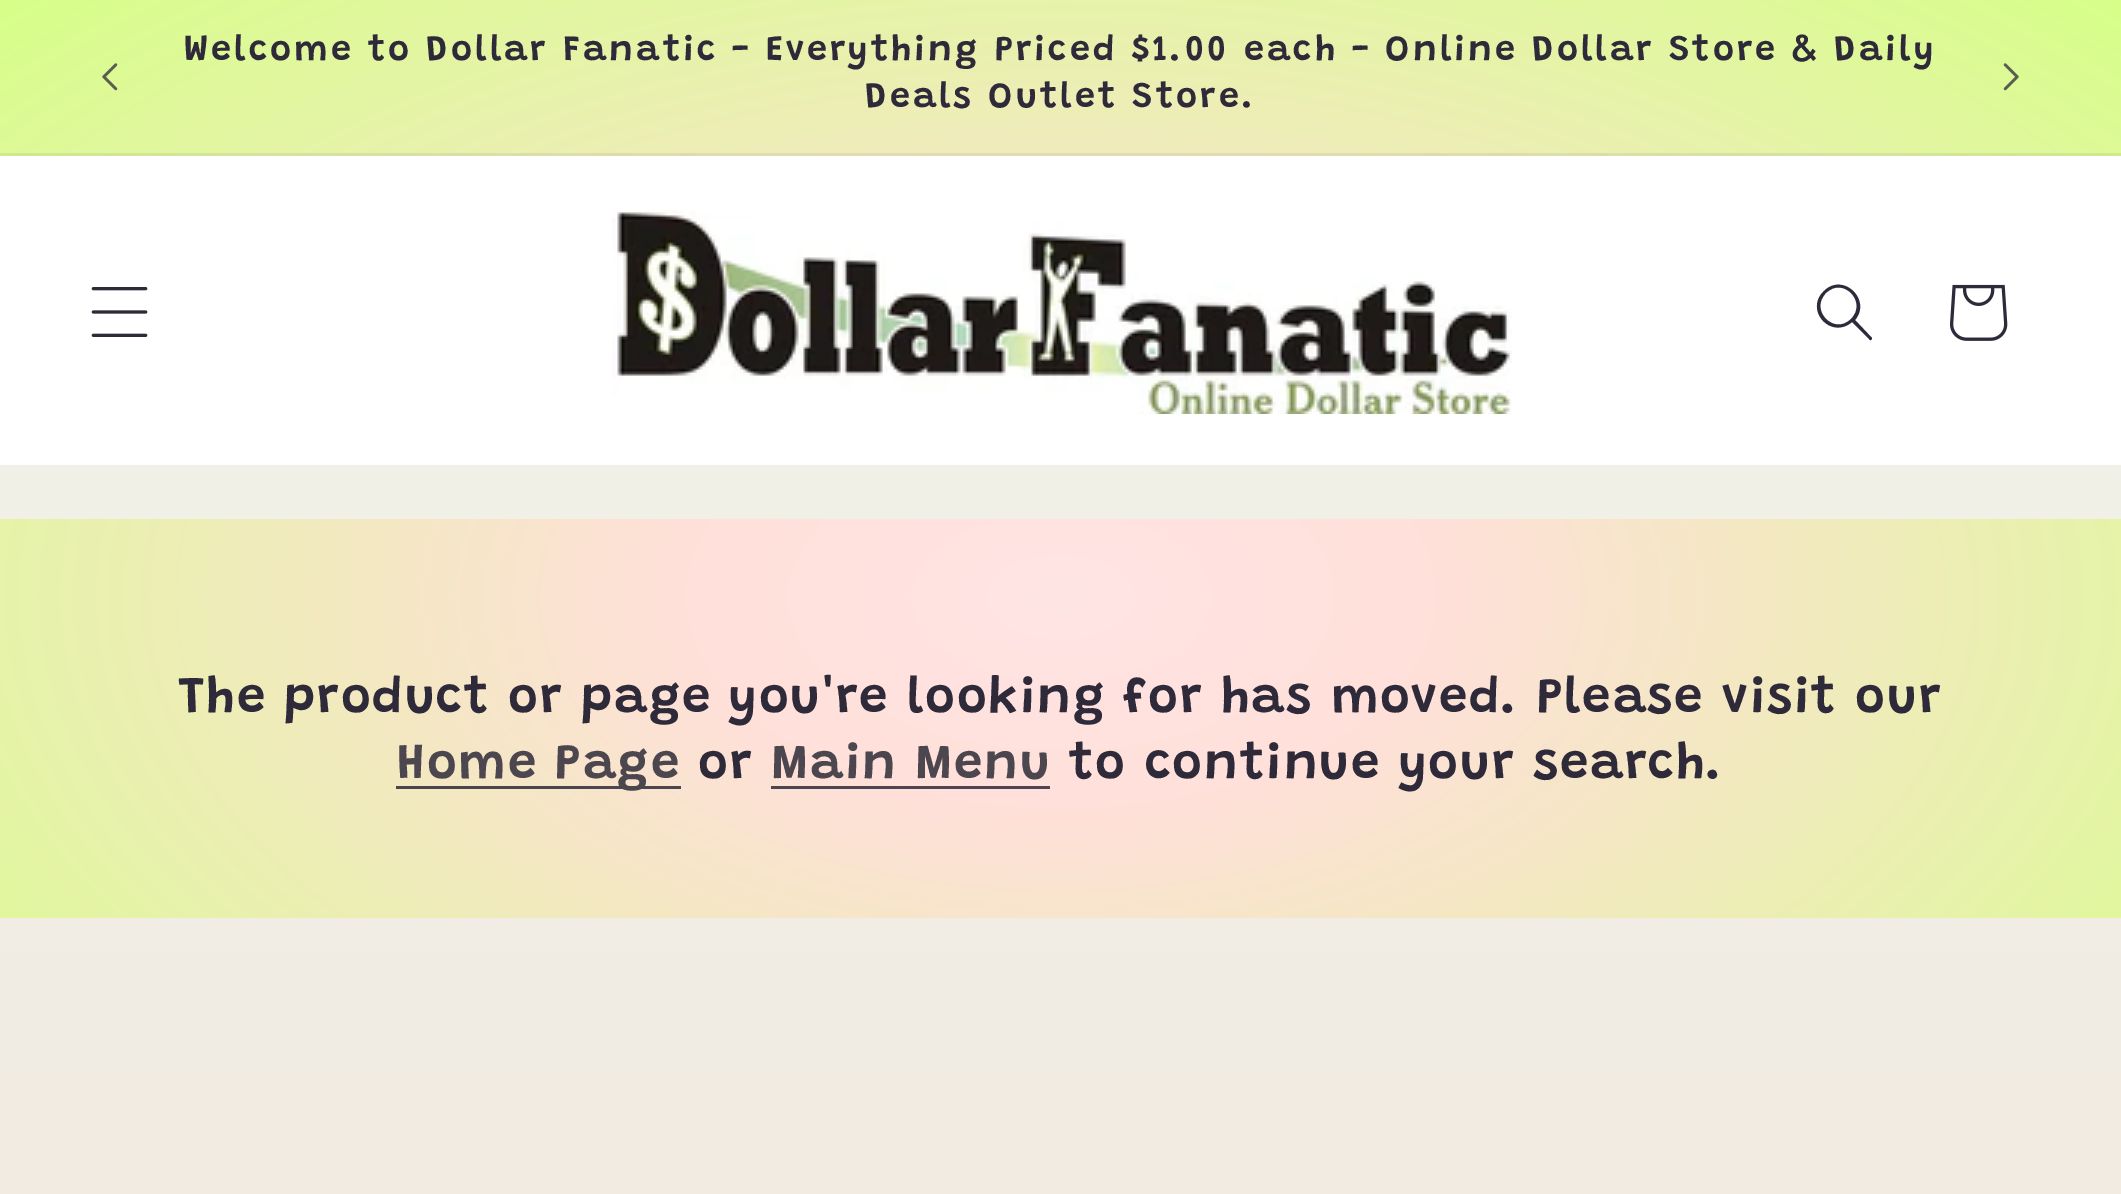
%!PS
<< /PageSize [2121 1194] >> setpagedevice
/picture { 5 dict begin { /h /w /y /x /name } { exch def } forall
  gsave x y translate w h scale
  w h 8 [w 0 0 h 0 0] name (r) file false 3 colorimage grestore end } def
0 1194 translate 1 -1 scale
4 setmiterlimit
1 setgray
0 0 2121 1194 rectfill
gsave newpath 0 465 moveto 2121 465 lineto 2121 1194 lineto 0 1194 lineto closepath clip newpath
<< /ShadingType 2 /ColorSpace /DeviceRGB /Coords [1061 0 1061 1194] /Extend [true true] /Function << /FunctionType 2 /Domain [0 1] /C0 [0.941 0.957 0.925] /C1 [0.945 0.922 0.886] /N 1 >> >> shfill grestore
gsave newpath 0 0 moveto 2121 0 lineto 2121 153 lineto 0 153 lineto closepath clip newpath 1061 597 translate 1500 844 scale
<< /ShadingType 3 /ColorSpace /DeviceRGB /Coords [0 0 0 0 0 1] /Extend [true true] /Function << /FunctionType 3 /Domain [0 1] /Functions [<< /FunctionType 2 /Domain [0 1] /C0 [1 0.898 0.898] /C1 [1 0.878 0.855] /N 1 >> << /FunctionType 2 /Domain [0 1] /C0 [1 0.878 0.855] /C1 [0.843 1 0.537] /N 1 >>] /Bounds [0.25] /Encode [0 1 0 1] >> >> shfill grestore
gsave newpath 0 153 moveto 2121 153 lineto 2121 156 lineto 0 156 lineto closepath clip newpath 1061 597 translate 1500 844 scale
<< /ShadingType 3 /ColorSpace /DeviceRGB /Coords [0 0 0 0 0 1] /Extend [true true] /Function << /FunctionType 3 /Domain [0 1] /Functions [<< /FunctionType 2 /Domain [0 1] /C0 [0.933 0.839 0.843] /C1 [0.933 0.82 0.804] /N 1 >> << /FunctionType 2 /Domain [0 1] /C0 [0.933 0.82 0.804] /C1 [0.788 0.933 0.514] /N 1 >>] /Bounds [0.25] /Encode [0 1 0 1] >> >> shfill grestore
(img1.rgb) 102 63 16 28 picture
/Grandstander-SemiBold [36 0 0 -36 0 0] selectfont
0.18 0.165 0.224 setrgbcolor
184 60 moveto 3 0 (Welcome to Dollar Fanatic - Everything Priced $1.00 each - Online Dollar Store & Daily) ashow
865 107 moveto 3 0 (Deals Outlet Store.) ashow
(img2.rgb) 2003 63 16 28 picture
(img3.rgb) 91 287 57 50 picture
(img4.rgb) 612 210 900 204 picture
newpath 1851 319 moveto 1834 336 1809 310 1826 293 curveto 1843 276 1868 302 1851 319 curveto 1852 322 moveto 1831 340 1804 310 1824 291 curveto 1843 272 1872 300 1855 320 curveto 1872 338 lineto 1872 340 1870 341 1869 339 curveto closepath eofill
(img5.rgb) 1950 284 58 57 picture
gsave newpath 0 519 moveto 2121 519 lineto 2121 918 lineto 0 918 lineto closepath clip newpath 1061 597 translate 1500 844 scale
<< /ShadingType 3 /ColorSpace /DeviceRGB /Coords [0 0 0 0 0 1] /Extend [true true] /Function << /FunctionType 3 /Domain [0 1] /Functions [<< /FunctionType 2 /Domain [0 1] /C0 [1 0.898 0.898] /C1 [1 0.878 0.855] /N 1 >> << /FunctionType 2 /Domain [0 1] /C0 [1 0.878 0.855] /C1 [0.843 1 0.537] /N 1 >>] /Bounds [0.25] /Encode [0 1 0 1] >> >> shfill grestore
gsave newpath 771 786 moveto 1050 786 lineto 1050 789 lineto 771 789 lineto closepath clip newpath 1061 597 translate 1500 844 scale
<< /ShadingType 3 /ColorSpace /DeviceRGB /Coords [0 0 0 0 0 1] /Extend [true true] /Function << /FunctionType 3 /Domain [0 1] /Functions [<< /FunctionType 2 /Domain [0 1] /C0 [0.302 0.275 0.325] /C1 [0.302 0.271 0.318] /N 1 >> << /FunctionType 2 /Domain [0 1] /C0 [0.302 0.271 0.318] /C1 [0.278 0.29 0.271] /N 1 >>] /Bounds [0.25] /Encode [0 1 0 1] >> >> shfill grestore
gsave newpath 396 786 moveto 681 786 lineto 681 789 lineto 396 789 lineto closepath clip newpath 1061 597 translate 1500 844 scale
<< /ShadingType 3 /ColorSpace /DeviceRGB /Coords [0 0 0 0 0 1] /Extend [true true] /Function << /FunctionType 3 /Domain [0 1] /Functions [<< /FunctionType 2 /Domain [0 1] /C0 [0.302 0.275 0.325] /C1 [0.302 0.271 0.318] /N 1 >> << /FunctionType 2 /Domain [0 1] /C0 [0.302 0.271 0.318] /C1 [0.278 0.29 0.271] /N 1 >>] /Bounds [0.25] /Encode [0 1 0 1] >> >> shfill grestore
/Grandstander-SemiBold [51 0 0 -51 0 0] selectfont
178 712 moveto 1.8 0 (The product or page you're looking for has moved. Please visit our) ashow
0.298 0.275 0.306 setrgbcolor
397 778 moveto 1.8 0 (Home Page) ashow
0.18 0.165 0.224 setrgbcolor
698 778 moveto 1.8 0 (or) ashow
0.298 0.275 0.306 setrgbcolor
771 778 moveto 1.8 0 (Main Menu) ashow
0.18 0.165 0.224 setrgbcolor
1069 778 moveto 1.8 0 (to continue your search.) ashow
showpage
